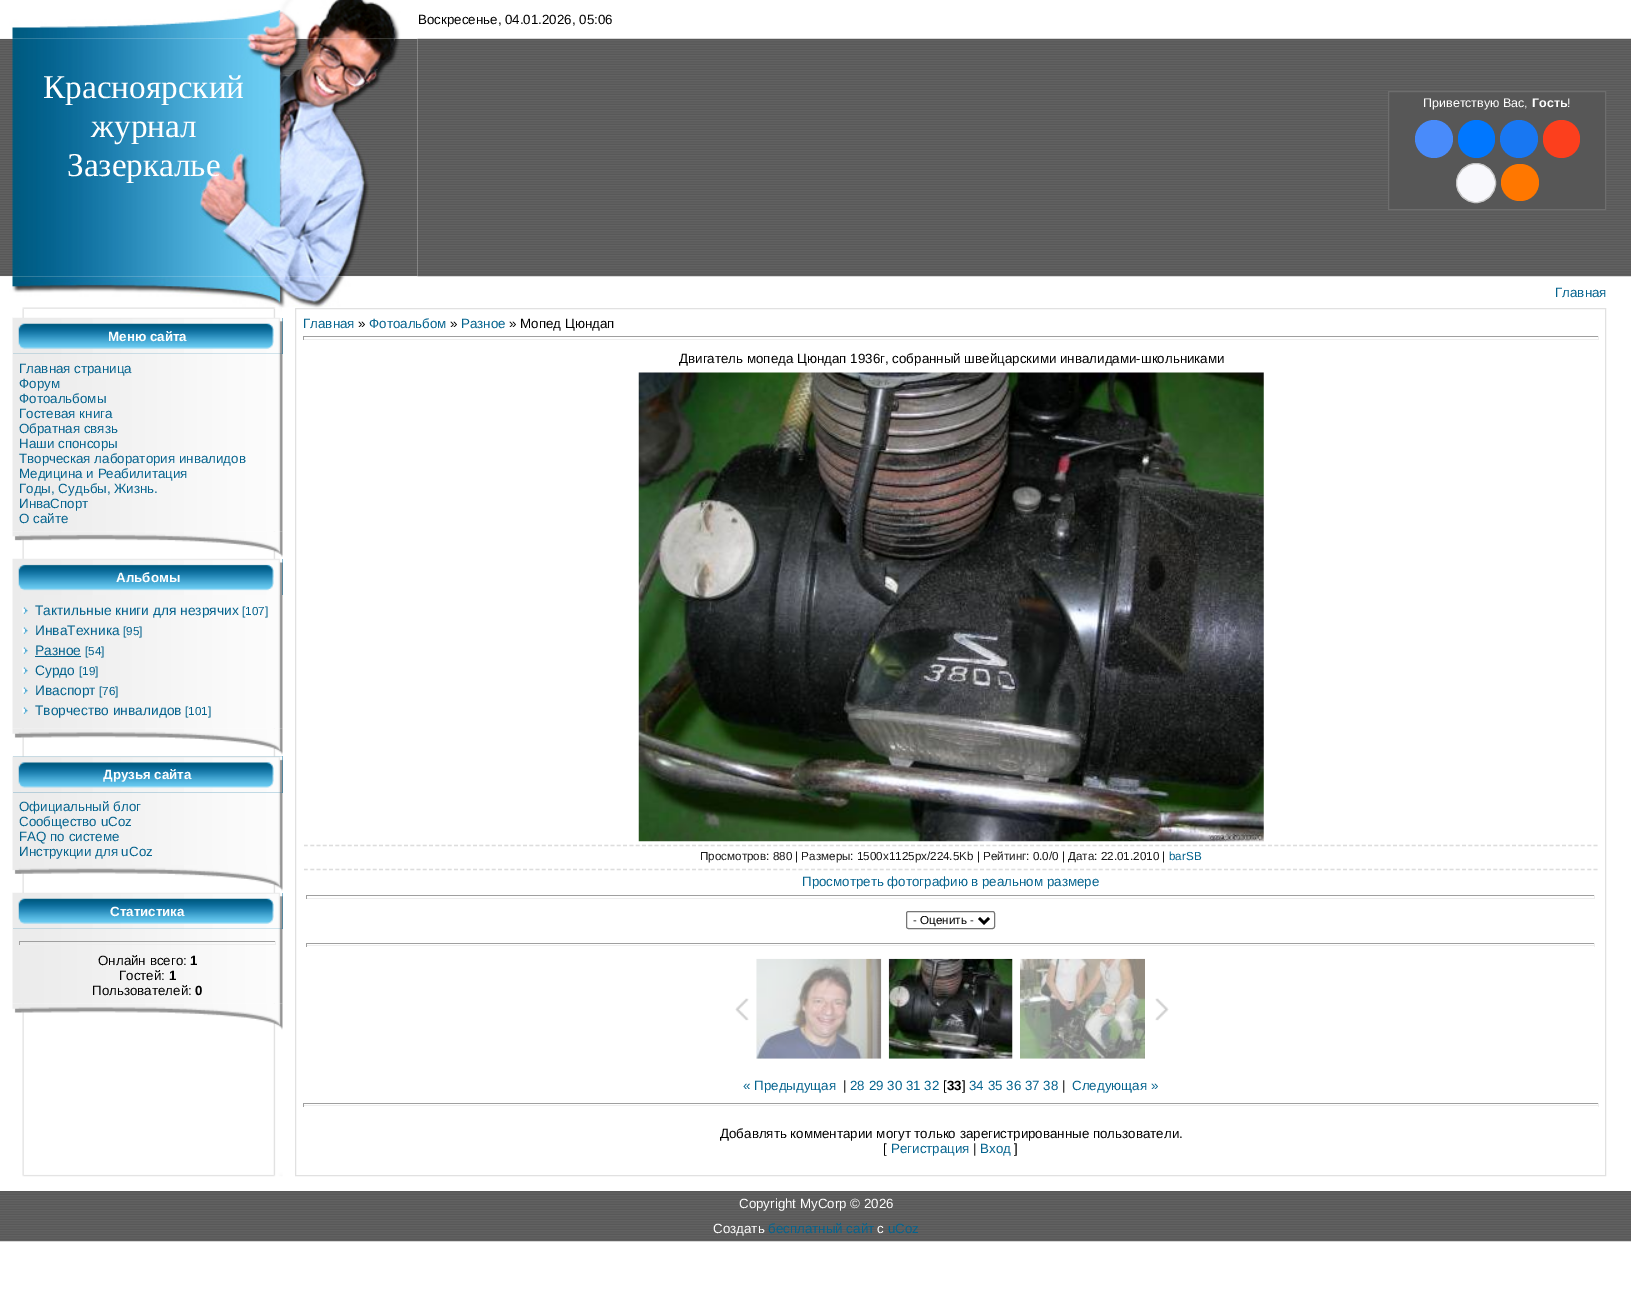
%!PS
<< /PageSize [1631 1304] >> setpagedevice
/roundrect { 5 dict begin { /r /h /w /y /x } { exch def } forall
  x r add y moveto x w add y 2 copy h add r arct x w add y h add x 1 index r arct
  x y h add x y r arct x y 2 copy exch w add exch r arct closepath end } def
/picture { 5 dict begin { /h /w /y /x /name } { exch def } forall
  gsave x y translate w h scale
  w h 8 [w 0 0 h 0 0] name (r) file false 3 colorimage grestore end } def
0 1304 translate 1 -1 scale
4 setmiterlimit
1 setgray
0 0 1631 1304 rectfill
(img2.rgb) 0 38 418 239 picture
(img3.rgb) 417 38 1214 239 picture
(img1.rgb) 0 0 418 39 picture
/LiberationSans-Regular [13.35 0 0 -13.35 0 0] selectfont
0 setgray
418 24 moveto (Воскресенье, 04.01.2026, 05:06) show
/LiberationSerif-Regular [33.25 0 0 -33.25 0 0] selectfont
1 setgray
43 98 moveto (Красноярский) show
91 137 moveto (журнал) show
67 176 moveto (Зазеркалье) show
0.341 setgray
newpath 1388.5 91.5 moveto 1605.5 91.5 lineto 1605.5 209.5 lineto 1388.5 209.5 lineto closepath gsave fill grestore
0.427 setgray
stroke
/LiberationSans-Regular [12.5 0 0 -12.5 0 0] selectfont
1 setgray
1423 107 moveto (Приветствую Вас,) show
/LiberationSans-Bold [12.5 0 0 -12.5 0 0] selectfont
1532 107 moveto (Гость) show
/LiberationSans-Regular [12.5 0 0 -12.5 0 0] selectfont
1567 107 moveto (!) show
0.286 0.545 0.98 setrgbcolor
newpath 1434 139 19 0 360 arc closepath fill
0 0.467 1 setrgbcolor
1458 120 37 38 18.5 roundrect fill
0.094 0.467 0.949 setrgbcolor
newpath 1519 139 19 0 360 arc closepath fill
0.988 0.247 0.114 setrgbcolor
1543 120 37 38 18.5 roundrect fill
0.973 0.973 0.988 setrgbcolor
newpath 1476 183 19.5 0 360 arc closepath gsave fill grestore
0.769 setgray
stroke
1 0.467 0 setrgbcolor
1501 164 38 37 18.5 roundrect fill
(img5.rgb) 22 307 261 870 picture
(img4.rgb) 0 276 418 32 picture
/LiberationSans-Regular [13.35 0 0 -13.35 0 0] selectfont
0.016 0.388 0.557 setrgbcolor
1555 297 moveto (Главная) show
0.082 0.467 0.651 setrgbcolor
13 318 270 36 rectfill
(img7.rgb) 12 317 271 37 picture
(img6.rgb) 13 307 269 11 picture
/LiberationSans-Bold [13.35 0 0 -13.35 0 0] selectfont
1 setgray
108 341 moveto (Меню сайта) show
(img8.rgb) 12 353 271 179 picture
/LiberationSans-Regular [13.35 0 0 -13.35 0 0] selectfont
0.016 0.388 0.557 setrgbcolor
19 373 moveto (Главная страница) show
19 388 moveto (Форум) show
19 403 moveto (Фотоальбомы) show
19 418 moveto (Гостевая книга) show
19 433 moveto (Обратная связь) show
19 448 moveto (Наши спонсоры) show
19 463 moveto (Творческая лаборатория инвалидов) show
19 478 moveto (Медицина и Реабилитация) show
19 493 moveto (Годы, Судьбы, Жизнь.) show
19 508 moveto (ИнваСпорт) show
19 523 moveto (О сайте) show
(img9.rgb) 12 531 271 26 picture
0.082 0.467 0.651 setrgbcolor
282 559 1 36 rectfill
(img10.rgb) 12 558 271 37 picture
/LiberationSans-Bold [13.35 0 0 -13.35 0 0] selectfont
1 setgray
116 582 moveto (Альбомы) show
(img11.rgb) 12 595 271 134 picture
(img12.rgb) 22 607 6 7 picture
/LiberationSans-Regular [13.75 0 0 -13.75 0 0] selectfont
0.016 0.388 0.557 setrgbcolor
35 615 moveto (Тактильные книги для незрячих) show
/LiberationSans-Regular [11.65 0 0 -11.65 0 0] selectfont
242 615 moveto ([107]) show
(img12.rgb) 22 627 6 7 picture
/LiberationSans-Regular [13.75 0 0 -13.75 0 0] selectfont
35 635 moveto (ИнваТехника) show
/LiberationSans-Regular [11.65 0 0 -11.65 0 0] selectfont
123 635 moveto ([95]) show
(img12.rgb) 22 647 6 7 picture
/LiberationSans-Regular [13.75 0 0 -13.75 0 0] selectfont
35 655 moveto (Разное) show
35 656 46 1 rectfill
/LiberationSans-Regular [11.65 0 0 -11.65 0 0] selectfont
85 655 moveto ([54]) show
(img12.rgb) 22 667 6 7 picture
/LiberationSans-Regular [13.75 0 0 -13.75 0 0] selectfont
35 675 moveto (Сурдо) show
/LiberationSans-Regular [11.65 0 0 -11.65 0 0] selectfont
79 675 moveto ([19]) show
(img12.rgb) 22 687 6 7 picture
/LiberationSans-Regular [13.75 0 0 -13.75 0 0] selectfont
35 695 moveto (Иваспорт) show
/LiberationSans-Regular [11.65 0 0 -11.65 0 0] selectfont
99 695 moveto ([76]) show
(img12.rgb) 22 707 6 7 picture
/LiberationSans-Regular [13.75 0 0 -13.75 0 0] selectfont
35 715 moveto (Творчество инвалидов) show
/LiberationSans-Regular [11.65 0 0 -11.65 0 0] selectfont
185 715 moveto ([101]) show
0.082 0.467 0.651 setrgbcolor
13 756 270 37 rectfill
(img14.rgb) 12 756 271 37 picture
(img13.rgb) 12 728 271 29 picture
/LiberationSans-Bold [13.35 0 0 -13.35 0 0] selectfont
1 setgray
103 779 moveto (Друзья сайта) show
(img15.rgb) 12 792 271 73 picture
/LiberationSans-Regular [13.35 0 0 -13.35 0 0] selectfont
0.016 0.388 0.557 setrgbcolor
19 811 moveto (Официальный блог) show
19 826 moveto (Сообщество uCoz) show
19 841 moveto (FAQ по системе) show
19 856 moveto (Инструкции для uCoz) show
0.082 0.467 0.651 setrgbcolor
13 893 270 36 rectfill
(img7.rgb) 12 892 271 37 picture
(img16.rgb) 12 865 271 28 picture
/LiberationSans-Bold [13.35 0 0 -13.35 0 0] selectfont
1 setgray
110 916 moveto (Статистика) show
(img17.rgb) 12 928 271 76 picture
0.624 setgray
19 941 257 1 rectfill
0.933 setgray
275 941 1 4 rectfill
19 944 257 1 rectfill
0.624 setgray
19 941 1 4 rectfill
/LiberationSans-Regular [13.35 0 0 -13.35 0 0] selectfont
0 setgray
98 965 moveto (Онлайн всего:) show
/LiberationSans-Bold [13.35 0 0 -13.35 0 0] selectfont
190 965 moveto (1) show
/LiberationSans-Regular [13.35 0 0 -13.35 0 0] selectfont
119 980 moveto (Гостей:) show
/LiberationSans-Bold [13.35 0 0 -13.35 0 0] selectfont
169 980 moveto (1) show
/LiberationSans-Regular [13.35 0 0 -13.35 0 0] selectfont
92 995 moveto (Пользователей:) show
/LiberationSans-Bold [13.35 0 0 -13.35 0 0] selectfont
195 995 moveto (0) show
(img18.rgb) 12 1003 271 27 picture
0.882 setgray
295.5 308.5 1310 867 rectstroke
/LiberationSans-Regular [13.35 0 0 -13.35 0 0] selectfont
0.016 0.388 0.557 setrgbcolor
303 328 moveto (Главная) show
0 setgray
358 328 moveto (») show
0.016 0.388 0.557 setrgbcolor
369 328 moveto (Фотоальбом) show
0 setgray
450 328 moveto (») show
0.016 0.388 0.557 setrgbcolor
461 328 moveto (Разное) show
0 setgray
509 328 moveto (» Мопед Цюндап) show
0.624 setgray
303 336 1296 1 rectfill
0.933 setgray
1598 336 1 4 rectfill
303 339 1296 1 rectfill
0.624 setgray
303 336 1 4 rectfill
0 setgray
679 363 moveto (Двигатель мопеда Цюндап 1936г, собранный швейцарскими инвалидами-школьниками) show
(img19.rgb) 638 372 626 470 picture
0.867 setgray
1.2 setlinewidth
[3.75 2.51] 0 setdash
newpath 304 845.5 moveto 1597.5 845.5 lineto stroke
newpath 304 869.5 moveto 1597.5 869.5 lineto stroke
/LiberationSans-Regular [11.65 0 0 -11.65 0 0] selectfont
0.102 setgray
700 860 moveto (Просмотров: 880 | Размеры: 1500x1125px/224.5Kb | Рейтинг: 0.0/0 | Дата: 22.01.2010 |) show
0.016 0.388 0.557 setrgbcolor
1169 860 moveto (barSB) show
/LiberationSans-Regular [13.35 0 0 -13.35 0 0] selectfont
802 886 moveto (Просмотреть фотографию в реальном размере) show
0.624 setgray
306 895 1289 1 rectfill
0.933 setgray
1594 895 1 4 rectfill
306 898 1289 1 rectfill
0.624 setgray
306 895 1 4 rectfill
0.463 setgray
1 setlinewidth
[] 0 setdash
906.5 911.5 88 17 2 roundrect stroke
0 setgray
2.5 setlinewidth
newpath 979 918 moveto 984 923 lineto 989 918 lineto stroke
/LiberationSans-Regular [11.65 0 0 -11.65 0 0] selectfont
913 924 moveto (- Оценить -) show
0.624 setgray
306 943 1289 1 rectfill
0.933 setgray
1594 943 1 4 rectfill
306 945 1289 1 rectfill
0.624 setgray
306 943 1 4 rectfill
(img20.rgb) 735 998 14 23 picture
(img21.rgb) 756 958 126 101 picture
(img22.rgb) 888 958 125 101 picture
(img23.rgb) 1020 958 125 101 picture
(img24.rgb) 1155 998 14 23 picture
/LiberationSans-Regular [13.35 0 0 -13.35 0 0] selectfont
0.016 0.388 0.557 setrgbcolor
743 1090 moveto (« Предыдущая) show
0 setgray
843 1090 moveto (|) show
0.016 0.388 0.557 setrgbcolor
850 1090 moveto (28 29 30 31 32) show
0 setgray
943 1090 moveto ([) show
/LiberationSans-Bold [13.35 0 0 -13.35 0 0] selectfont
947 1090 moveto (33) show
/LiberationSans-Regular [13.35 0 0 -13.35 0 0] selectfont
962 1090 moveto (]) show
0.016 0.388 0.557 setrgbcolor
969 1090 moveto (34 35 36 37 38) show
0 setgray
1062 1090 moveto (|) show
0.016 0.388 0.557 setrgbcolor
1072 1090 moveto (Следующая ») show
0.624 setgray
303 1103 1296 1 rectfill
0.933 setgray
1598 1103 1 4 rectfill
303 1105 1296 1 rectfill
0.624 setgray
303 1103 1 4 rectfill
0 setgray
720 1138 moveto (Добавлять комментарии могут только зарегистрированные пользователи.) show
883 1153 moveto ([) show
0.016 0.388 0.557 setrgbcolor
891 1153 moveto (Регистрация) show
0 setgray
973 1153 moveto (|) show
0.016 0.388 0.557 setrgbcolor
980 1153 moveto (Вход) show
0 setgray
1014 1153 moveto (]) show
0.341 setgray
0 1191 1631 1 rectfill
(img25.rgb) 0 1192 1631 50 picture
1 setgray
739 1208 moveto (Copyright MyCorp © 2026) show
713 1233 moveto (Создать) show
0.016 0.388 0.557 setrgbcolor
768 1233 moveto (бесплатный сайт) show
1 setgray
877 1233 moveto (с) show
0.016 0.388 0.557 setrgbcolor
888 1233 moveto (uCoz) show
showpage
